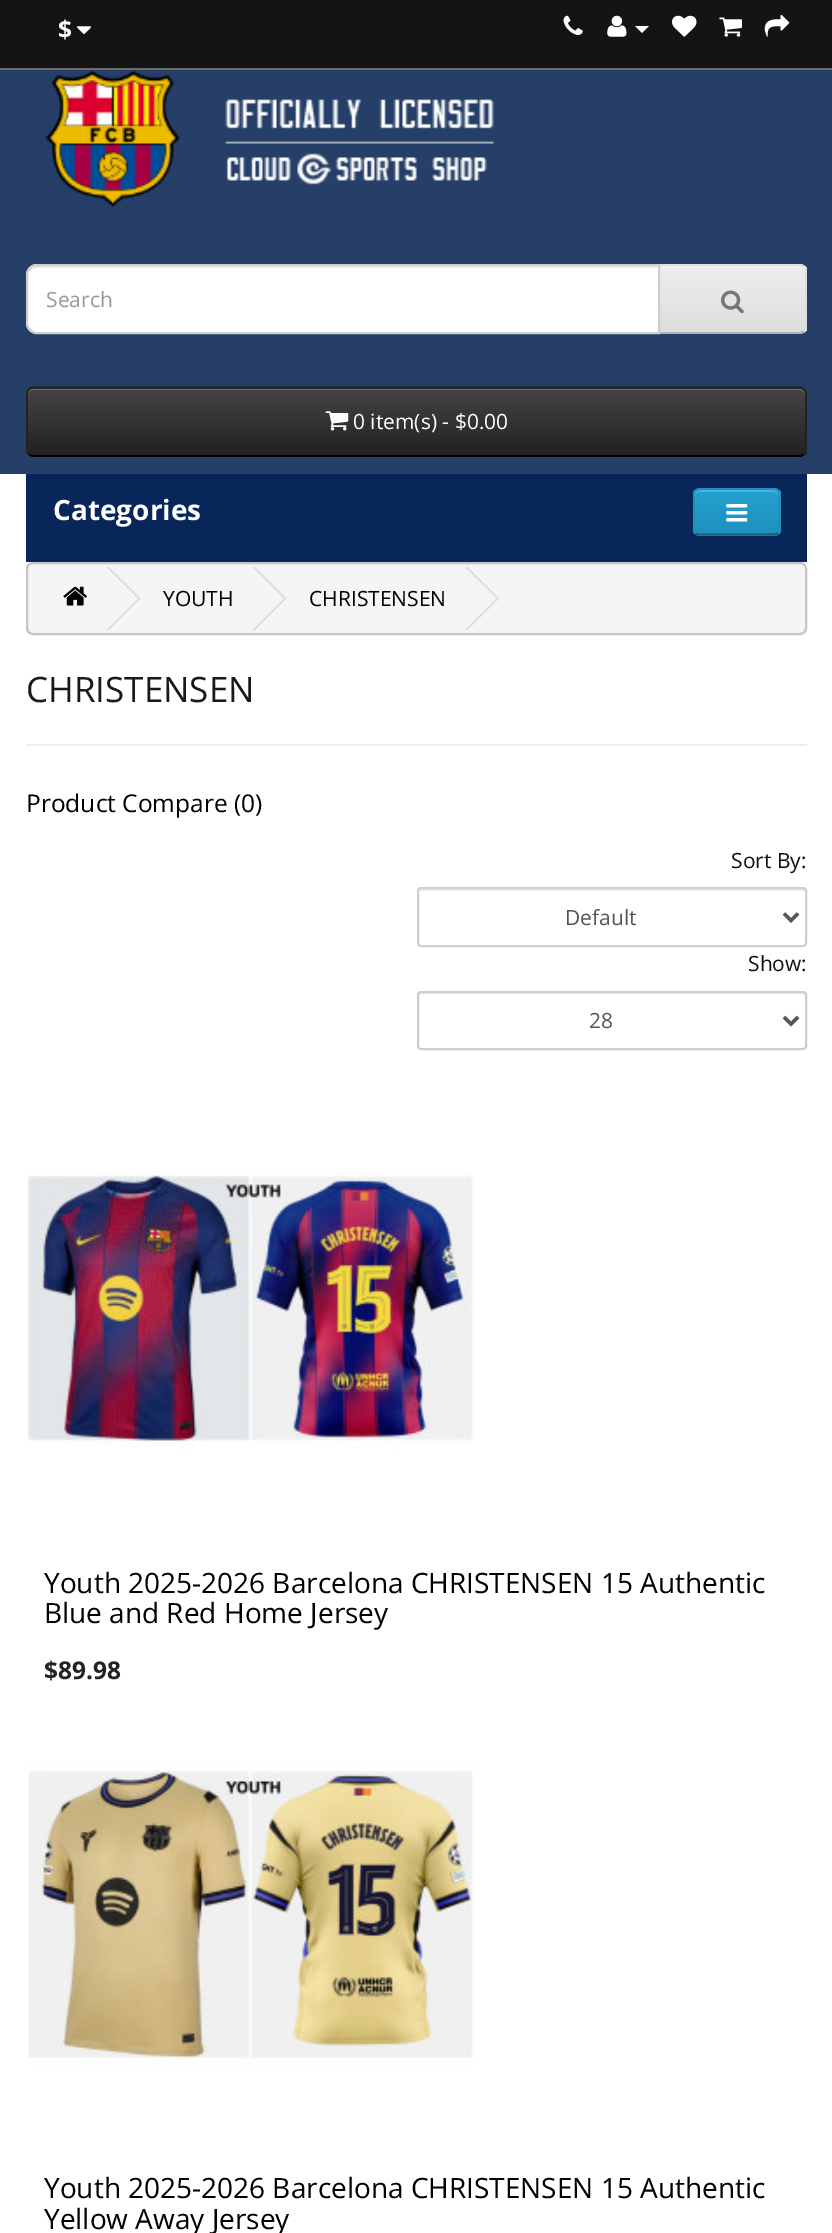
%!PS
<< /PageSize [832 2233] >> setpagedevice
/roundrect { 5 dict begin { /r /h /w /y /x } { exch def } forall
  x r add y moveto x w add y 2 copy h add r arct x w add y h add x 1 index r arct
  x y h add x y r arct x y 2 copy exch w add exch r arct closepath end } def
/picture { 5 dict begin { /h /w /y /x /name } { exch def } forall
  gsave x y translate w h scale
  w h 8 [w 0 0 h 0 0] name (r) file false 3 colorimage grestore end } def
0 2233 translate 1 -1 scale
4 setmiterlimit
1 setgray
0 0 832 2233 rectfill
0.082 0.078 0.078 setrgbcolor
0 0 832 68 rectfill
0.431 0.416 0.416 setrgbcolor
0 68 832 2 rectfill
/OpenSans-Bold [24.5 0 0 -24.5 0 0] selectfont
1 setgray
58 38 moveto ($) show
(img1.rgb) 77 26 14 8 picture
(img2.rgb) 563 15 20 20 picture
(img3.rgb) 607 15 20 22 picture
newpath 635 26 moveto 649 26 lineto 642 33 lineto closepath fill
(img4.rgb) 672 15 25 22 picture
(img5.rgb) 719 17 23 20 picture
(img6.rgb) 764 14 26 23 picture
0.149 0.247 0.408 setrgbcolor
0 70 832 404 rectfill
(img7.rgb) 45 70 449 137 picture
gsave
newpath 658 264 moveto 800 264 lineto 804 264 807 267 807 271 curveto 807 327 lineto 807 331 804 334 800 334 curveto 658 334 lineto closepath clip newpath
gsave newpath 660 266 moveto 807 266 lineto 807 333 lineto 660 333 lineto closepath clip newpath
<< /ShadingType 2 /ColorSpace /DeviceRGB /Coords [732 266 732 333] /Extend [true true] /Function << /FunctionType 2 /Domain [0 1] /C0 [0.933 0.933 0.933] /C1 [0.867 0.867 0.867] /N 1 >> >> shfill grestore
grestore
0.945 setgray
newpath 660 268 moveto 800 268 lineto 803 268 805 270 805 273 curveto 805 271 lineto 805 268 803 266 800 266 curveto 660 266 lineto closepath fill
0.867 setgray
newpath 660 266 moveto 658 264 lineto 802 264 lineto 805 266 lineto 804 267 lineto 803 266 802 266 800 266 curveto closepath fill
newpath 807 329 moveto 805 332 lineto 803 331 lineto 805 328 lineto 805 270 lineto 804 267 lineto 805 266 lineto 807 269 lineto closepath fill
0.702 setgray
newpath 805 332 moveto 804 333 802 334 800 334 curveto 658 334 lineto 660 332 lineto 800 332 lineto 803 331 lineto closepath fill
1 setgray
newpath 37 264 moveto 660 264 lineto 660 334 lineto 37 334 lineto 31 334 26 329 26 323 curveto 26 275 lineto 26 269 31 264 37 264 curveto closepath fill
0.925 setgray
newpath 37 268 moveto 658 268 lineto 658 266 lineto 37 266 lineto 31 266 28 271 28 276 curveto 28 272 32 268 37 268 curveto closepath fill
0.808 setgray
2 setlinewidth
newpath 37 265 moveto 659 265 lineto 659 333 lineto 37 333 lineto 31.5 333 27 328.5 27 323 curveto 27 275 lineto 27 269.5 31.5 265 37 265 curveto closepath stroke
/OpenSans-Regular [21 0 0 -21 0 0] selectfont
0.6 setgray
46 307 moveto (Search) show
(img8.rgb) 721 290 23 24 picture
0.212 setgray
26 387 781 70 7 roundrect fill
gsave
26 387 781 70 7 roundrect clip newpath
gsave newpath 26 389 moveto 807 389 lineto 807 455 lineto 26 455 lineto closepath clip newpath
<< /ShadingType 2 /ColorSpace /DeviceRGB /Coords [417 388 417 455] /Extend [true true] /Function << /FunctionType 2 /Domain [0 1] /C0 [0.267 0.267 0.267] /C1 [0.133 0.133 0.133] /N 1 >> >> shfill grestore
grestore
0.412 setgray
newpath 33 390 moveto 800 390 lineto 803 390 805 393 805 396 curveto 805 393 804 389 800 389 curveto 33 389 lineto 29 389 28 393 28 396 curveto 28 393 30 390 33 390 curveto closepath fill
0 setgray
1.8 setlinewidth
newpath 804 454 moveto 803 455 801.5 456 800 456 curveto 33 456 lineto 31.5 456 30 455 29 454 curveto stroke
0.133 setgray
newpath 29 454 moveto 28 453 27 451.5 27 450 curveto 27 394 lineto 27 392 28 390.5 29 389.5 curveto 30 388.5 31.5 387.5 33 387.5 curveto 800 387.5 lineto 801.5 387.5 803 388.5 804 389.5 curveto 805 390.5 806 392 806 394 curveto 806 450 lineto 806 451.5 805 453 804 454 curveto stroke
(img9.rgb) 325 411 24 20 picture
1 setgray
353 429 moveto (0 item\(s\) - $0.00) show
0.035 0.149 0.353 setrgbcolor
26 474 781 88 rectfill
/OpenSans-Bold [28 0 0 -28 0 0] selectfont
1 setgray
53 520 moveto (Categories) show
0.133 0.604 0.784 setrgbcolor
693 488 88 48 7 roundrect fill
gsave
693 488 88 48 7 roundrect clip newpath
gsave newpath 693 490 moveto 781 490 lineto 781 534 lineto 693 534 lineto closepath clip newpath
<< /ShadingType 2 /ColorSpace /DeviceRGB /Coords [737 490 737 534] /Extend [true true] /Function << /FunctionType 2 /Domain [0 1] /C0 [0.137 0.631 0.82] /C1 [0.122 0.565 0.733] /N 1 >> >> shfill grestore
grestore
0.31 0.702 0.855 setrgbcolor
newpath 700 492 moveto 774 492 lineto 776 492 779 494 779 497 curveto 779 487 770 490 762 490 curveto 712 490 lineto 704 490 695 487 695 497 curveto 695 494 697 492 700 492 curveto closepath fill
0.078 0.369 0.478 setrgbcolor
newpath 778 533 moveto 776.5 534 775 534.5 773.5 534.5 curveto 700 534.5 lineto 698.5 534.5 697 534 695.5 533 curveto stroke
0.122 0.565 0.733 setrgbcolor
newpath 695.5 533 moveto 694.5 531.5 694 530 694 528.5 curveto 694 495 lineto 694 493.5 694.5 492 695.5 491 curveto 697 490 698.5 489 700 489 curveto 773.5 489 lineto 775 489 776.5 490 778 491 curveto 779 492 779.5 493.5 779.5 495 curveto 779.5 528.5 lineto 779.5 530 779 531.5 778 533 curveto stroke
(img10.rgb) 726 504 22 18 picture
0.961 setgray
27 563 779 71 6 roundrect gsave fill grestore
0.784 0.769 0.769 setrgbcolor
2 setlinewidth
stroke
(img11.rgb) 63 586 24 20 picture
0.867 setgray
newpath 107 567.5 moveto 108.5 566.5 lineto 140.5 598.5 lineto 139.5 599.5 lineto closepath fill
newpath 107 629.5 moveto 139.5 597.5 lineto 140.5 598.5 lineto 108.5 630.5 lineto closepath fill
/OpenSans-Regular [21 0 0 -21 0 0] selectfont
0 setgray
163 606 moveto (YOUTH) show
0.867 setgray
newpath 253 567.5 moveto 254.5 566.5 lineto 286.5 598.5 lineto 285 599.5 lineto closepath fill
newpath 253 629.5 moveto 285 597.5 lineto 286.5 598.5 lineto 254.5 630.5 lineto closepath fill
0 setgray
309 606 moveto (CHRISTENSEN) show
0.867 setgray
newpath 465.5 567.5 moveto 467 566.5 lineto 499 598.5 lineto 498 599.5 lineto closepath fill
newpath 465.5 629.5 moveto 498 597.5 lineto 499 598.5 lineto 467 630.5 lineto closepath fill
/OpenSans-Regular [35 0 0 -35 0 0] selectfont
0.106 0.094 0.094 setrgbcolor
26 702 moveto (CHRISTENSEN) show
0.933 setgray
26 744 781 2 rectfill
/OpenSans-Regular [24.5 0 0 -24.5 0 0] selectfont
0 setgray
26 812 moveto (Product Compare \(0\)) show
/OpenSans-Regular [21 0 0 -21 0 0] selectfont
0.067 0.059 0.059 setrgbcolor
731 868 moveto (Sort By:) show
0.925 setgray
newpath 420 891 moveto 803 891 lineto 805 892 lineto 805 890 lineto 803 889 lineto 420 889 lineto 418 889 418 891 418 892 curveto closepath fill
0.808 setgray
418 888 388 58 3 roundrect stroke
0.333 setgray
3.5 setlinewidth
newpath 784 913.5 moveto 791 920.5 lineto 798 913.5 lineto stroke
565 925 moveto (Default) show
0.067 0.059 0.059 setrgbcolor
748 971 moveto (Show:) show
0.925 setgray
newpath 420 994 moveto 803 994 lineto 804 994 805 995 805 996 curveto 805 994 lineto 805 993 804 992 803 992 curveto 420 992 lineto 419 992 418 993 418 994 curveto 418 996 lineto 418 995 419 994 420 994 curveto closepath fill
0.808 setgray
2 setlinewidth
418 992 388 57 3 roundrect stroke
0.333 setgray
3.5 setlinewidth
newpath 784 1017 moveto 791 1024 lineto 798 1017 lineto stroke
589 1028 moveto (28) show
(img12.rgb) 27 1169 447 280 picture
/OpenSans-Regular [28 0 0 -28 0 0] selectfont
0 setgray
44 1593 moveto (Youth 2025-2026 Barcelona CHRISTENSEN 15 Authentic) show
44 1623 moveto (Blue and Red Home Jersey) show
/OpenSans-Bold [24.5 0 0 -24.5 0 0] selectfont
0.141 0.137 0.137 setrgbcolor
44 1679 moveto ($89.98) show
(img13.rgb) 28 1761 446 306 picture
/OpenSans-Regular [28 0 0 -28 0 0] selectfont
0 setgray
44 2198 moveto (Youth 2025-2026 Barcelona CHRISTENSEN 15 Authentic) show
44 2229 moveto (Yellow Away Jersey) show
showpage
